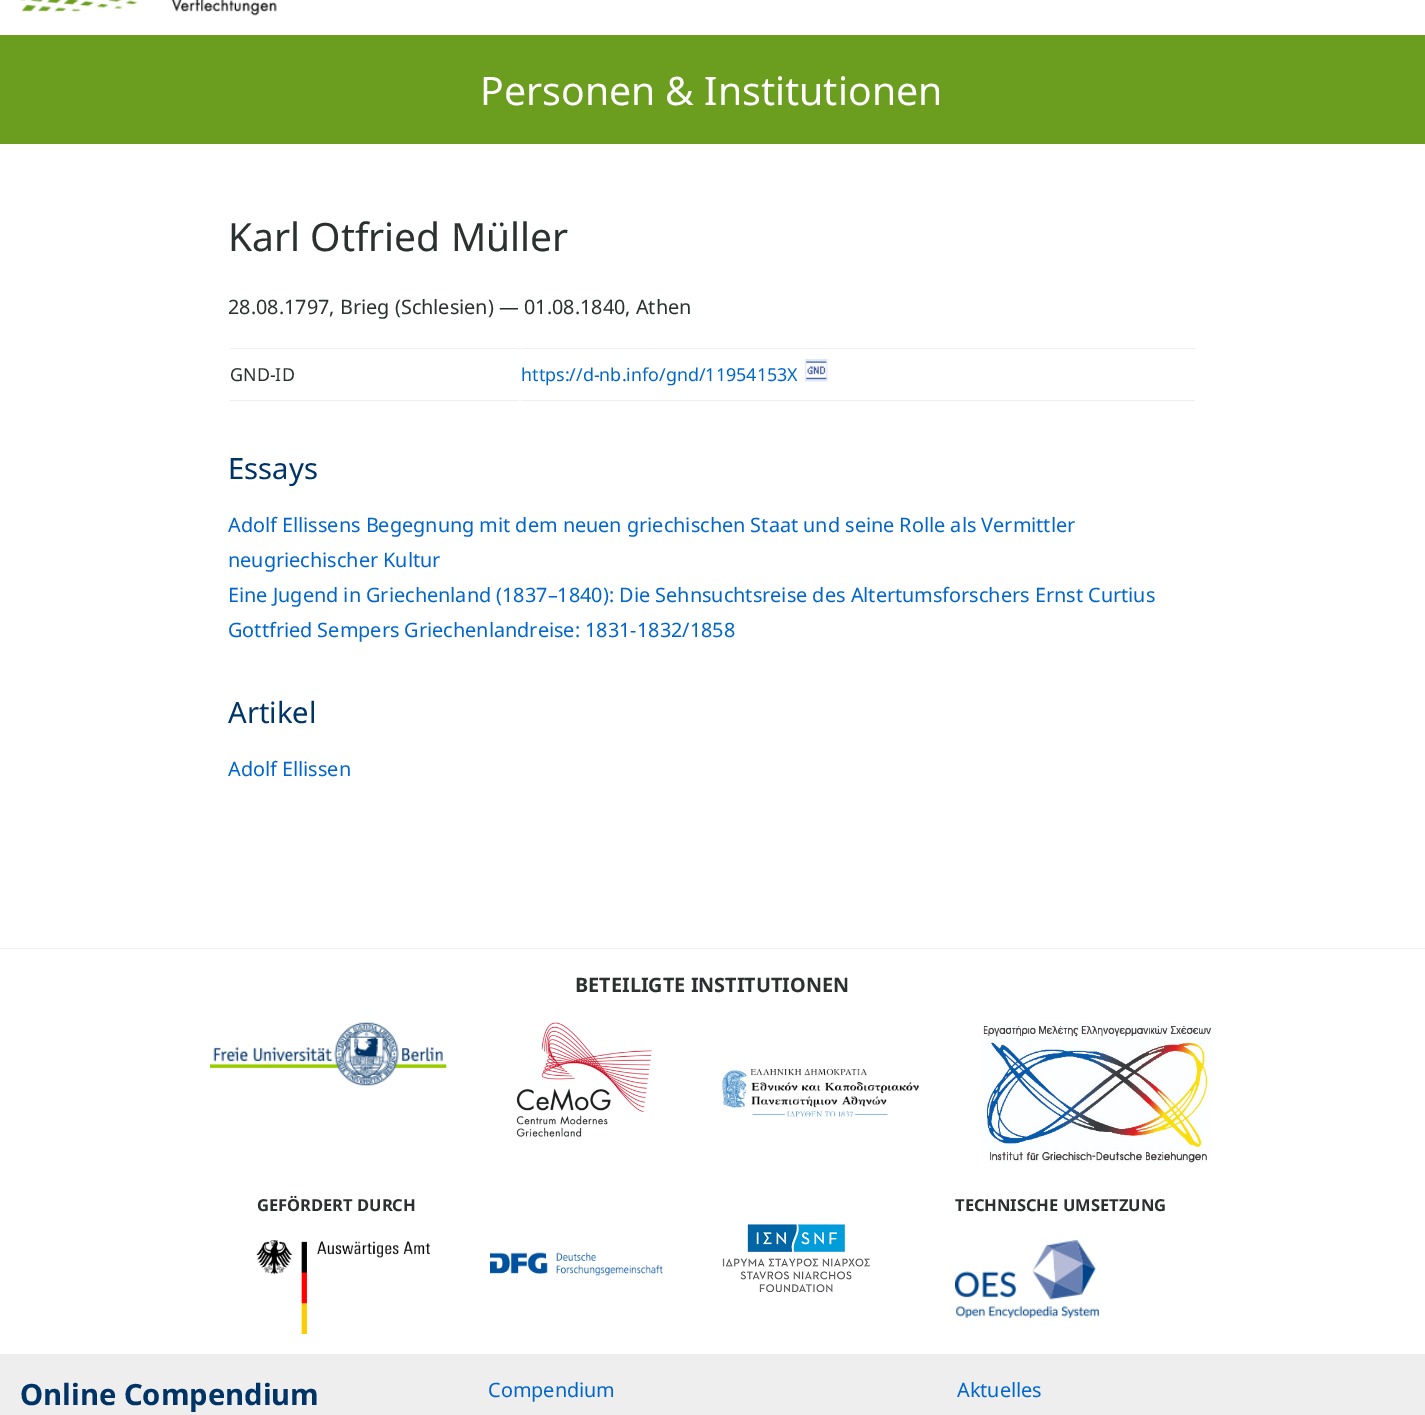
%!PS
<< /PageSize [1425 1415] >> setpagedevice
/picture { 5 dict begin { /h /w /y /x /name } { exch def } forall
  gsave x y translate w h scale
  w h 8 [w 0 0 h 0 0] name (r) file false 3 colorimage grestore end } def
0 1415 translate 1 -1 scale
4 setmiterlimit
1 setgray
0 0 1425 1415 rectfill
(img1.rgb) 20 0 257 16 picture
0.42 0.62 0.118 setrgbcolor
0 35 1425 109 rectfill
/NotoSans-Regular [39.25 0 0 -39.25 0 0] selectfont
1 setgray
480 105 moveto (Personen & Institutionen) show
/NotoSans-Regular [39 0 0 -39 0 0] selectfont
0.165 0.192 0.188 setrgbcolor
228 251 moveto (Karl Otfried Müller) show
/NotoSans-Regular [19.85 0 0 -19.85 0 0] selectfont
228 314 moveto (28.08.1797, Brieg \(Schlesien\) — 01.08.1840, Athen) show
0.933 setgray
230 348 289 1 rectfill
230 400 289 1 rectfill
/NotoSans-Regular [17.9 0 0 -17.9 0 0] selectfont
0.165 0.192 0.188 setrgbcolor
230 381 moveto (GND-ID) show
0.933 setgray
521 348 674 1 rectfill
521 400 674 1 rectfill
0 0.4 0.8 setrgbcolor
521 381 moveto (https://d-nb.info/gnd/11954153X) show
(img2.rgb) 805 359 23 23 picture
/NotoSans-Regular [29.25 0 0 -29.25 0 0] selectfont
0 0.2 0.4 setrgbcolor
228 479 moveto (Essays) show
/NotoSans-Regular [19.85 0 0 -19.85 0 0] selectfont
0 0.4 0.8 setrgbcolor
228 532 moveto (Adolf Ellissens Begegnung mit dem neuen griechischen Staat und seine Rolle als Vermittler) show
228 567 moveto (neugriechischer Kultur) show
228 602 moveto (Eine Jugend in Griechenland \(1837–1840\): Die Sehnsuchtsreise des Altertumsforschers Ernst Curtius) show
228 637 moveto (Gottfried Sempers Griechenlandreise: 1831-1832/1858) show
/NotoSans-Regular [29.25 0 0 -29.25 0 0] selectfont
0 0.2 0.4 setrgbcolor
228 723 moveto (Artikel) show
/NotoSans-Regular [19.85 0 0 -19.85 0 0] selectfont
0 0.4 0.8 setrgbcolor
228 776 moveto (Adolf Ellissen) show
0.933 setgray
0 948 1425 1 rectfill
/NotoSans-Bold [19.85 0 0 -19.85 0 0] selectfont
0.165 0.192 0.188 setrgbcolor
575 992 moveto (BETEILIGTE INSTITUTIONEN) show
(img3.rgb) 210 1022 237 64 picture
(img4.rgb) 516 1022 136 115 picture
(img5.rgb) 722 1069 197 48 picture
(img6.rgb) 983 1023 229 140 picture
/NotoSans-Bold [16.5 0 0 -16.5 0 0] selectfont
257 1211 moveto (GEFÖRDERT DURCH) show
(img7.rgb) 256 1240 174 94 picture
955 1211 moveto (TECHNISCHE UMSETZUNG) show
(img8.rgb) 955 1240 144 78 picture
(img9.rgb) 490 1252 173 24 picture
(img10.rgb) 722 1224 148 68 picture
0.933 setgray
0 1354 1425 61 rectfill
/NotoSans-Bold [29.25 0 0 -29.25 0 0] selectfont
0 0.2 0.4 setrgbcolor
20 1405 moveto (Online Compendium) show
/NotoSans-Regular [19.85 0 0 -19.85 0 0] selectfont
0 0.4 0.8 setrgbcolor
488 1397 moveto (Compendium) show
957 1397 moveto (Aktuelles) show
showpage
